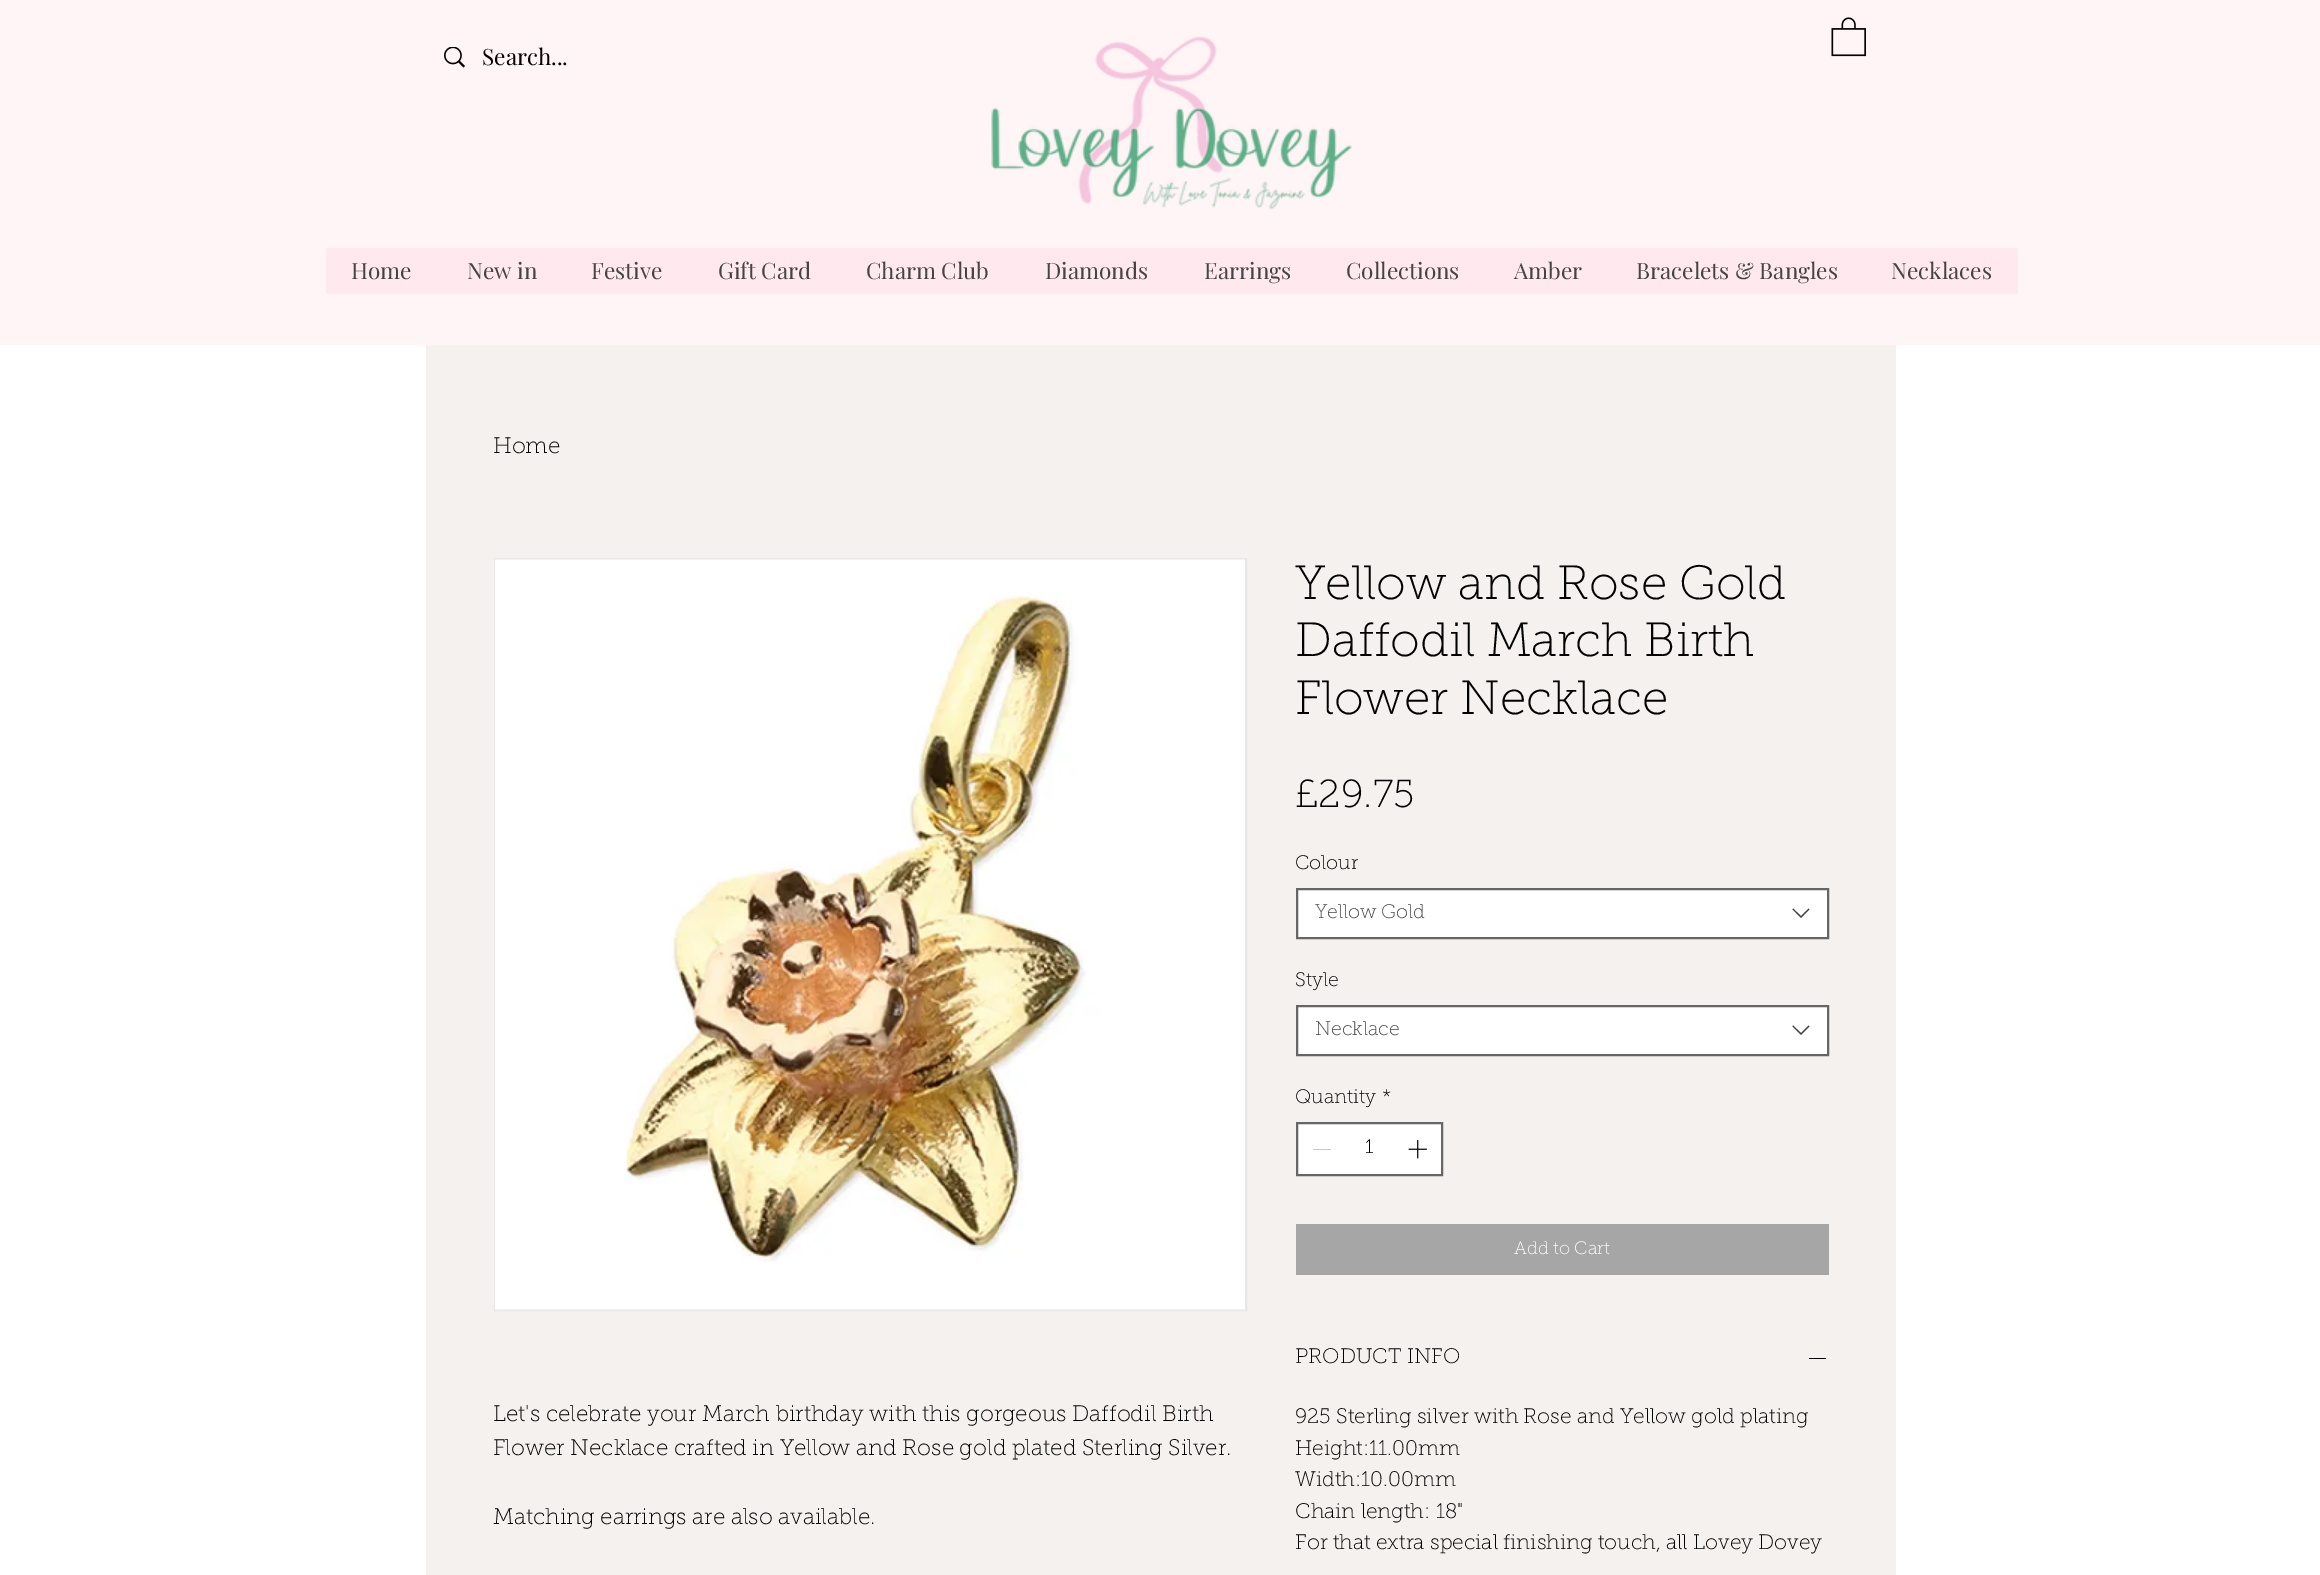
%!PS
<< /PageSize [2320 1575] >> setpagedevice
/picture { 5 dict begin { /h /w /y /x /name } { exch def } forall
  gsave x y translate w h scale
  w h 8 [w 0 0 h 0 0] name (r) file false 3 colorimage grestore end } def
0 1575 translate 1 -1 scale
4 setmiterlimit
1 setgray
0 0 2320 1575 rectfill
1 0.957 0.965 setrgbcolor
0 0 2320 345 rectfill
(img1.rgb) 444 47 21 21 picture
/PlayfairDisplay-Regular [22.5 0 0 -22.5 0 0] selectfont
0 setgray
482 65 moveto (Search...) show
(img2.rgb) 991 36 361 174 picture
(img3.rgb) 1831 17 35 40 picture
1 0.914 0.933 setrgbcolor
326 248 1692 46 rectfill
0.267 setgray
351 279 moveto (Home) show
467 279 moveto (New in) show
591 279 moveto (Festive) show
718 279 moveto (Gift Card) show
866 279 moveto (Charm Club) show
1045 279 moveto (Diamonds) show
1204 279 moveto (Earrings) show
1346 279 moveto (Collections) show
1514 279 moveto (Amber) show
1636 279 moveto (Bracelets & Bangles) show
1891 279 moveto (Necklaces) show
0.961 0.945 0.933 setrgbcolor
426 345 1470 1230 rectfill
/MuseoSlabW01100-Thin [22.5 0 0 -22.5 0 0] selectfont
0 setgray
493 453 moveto (Home) show
0.91 0.902 0.902 setrgbcolor
2 setlinewidth
495 559 751 751 rectstroke
(img4.rgb) 495 559 750 751 picture
0 setgray
493 1421 moveto (Let's celebrate your March birthday with this gorgeous Daffodil Birth) show
493 1455 moveto (Flower Necklace crafted in Yellow and Rose gold plated Sterling Silver.) show
493 1524 moveto (Matching earrings are also available.) show
/MuseoSlabW01100-Thin [48 0 0 -48 0 0] selectfont
1295 599 moveto (Yellow and Rose Gold) show
1295 656 moveto (Daffodil March Birth) show
1295 714 moveto (Flower Necklace) show
/MuseoSlabW01100-Thin [39 0 0 -39 0 0] selectfont
1295 807 moveto (£29.75) show
/MuseoSlabW01100-Thin [19.5 0 0 -19.5 0 0] selectfont
1295 869 moveto (Colour) show
1 setgray
newpath 1297 889 moveto 1828 889 lineto 1828 938 lineto 1297 938 lineto closepath gsave fill grestore
0.4 setgray
stroke
0.267 setgray
1315 918 moveto (Yellow Gold) show
newpath 1808.5 908.5 moveto 1809.5 909.5 lineto 1801 918 lineto 1792.5 909.5 lineto 1793 908.5 lineto 1801 916 lineto closepath eofill
0 setgray
1295 986 moveto (Style) show
1 setgray
newpath 1297 1006 moveto 1828 1006 lineto 1828 1055 lineto 1297 1055 lineto closepath gsave fill grestore
0.4 setgray
stroke
0.267 setgray
1315 1035 moveto (Necklace) show
newpath 1808.5 1025.5 moveto 1809.5 1026.5 lineto 1801 1035 lineto 1792.5 1026.5 lineto 1793 1025.5 lineto 1801 1033 lineto closepath eofill
0 setgray
1295 1103 moveto (Quantity) show
1382 1103 moveto (*) show
1 setgray
newpath 1297 1123 moveto 1442 1123 lineto 1442 1175 lineto 1297 1175 lineto closepath gsave fill grestore
0.4 setgray
stroke
0.78 setgray
1313 1149 18 1 rectfill
0 setgray
1365 1153 moveto (1) show
(img5.rgb) 1408 1140 19 19 picture
0.651 setgray
1296 1224 533 51 rectfill
/MuseoSlabW01100-Thin [18 0 0 -18 0 0] selectfont
1 setgray
1514 1254 moveto (Add to Cart) show
/MuseoSlabW01100-Thin [21 0 0 -21 0 0] selectfont
0 setgray
1295 1363 moveto (PRODUCT INFO) show
1809 1358 17 1 rectfill
1295 1423 moveto (925 Sterling silver with Rose and Yellow gold plating) show
1295 1455 moveto (Height:11.00mm) show
1295 1486 moveto (Width:10.00mm) show
1295 1518 moveto (Chain length: 18") show
1295 1549 moveto (For that extra special finishing touch, all Lovey Dovey) show
showpage
